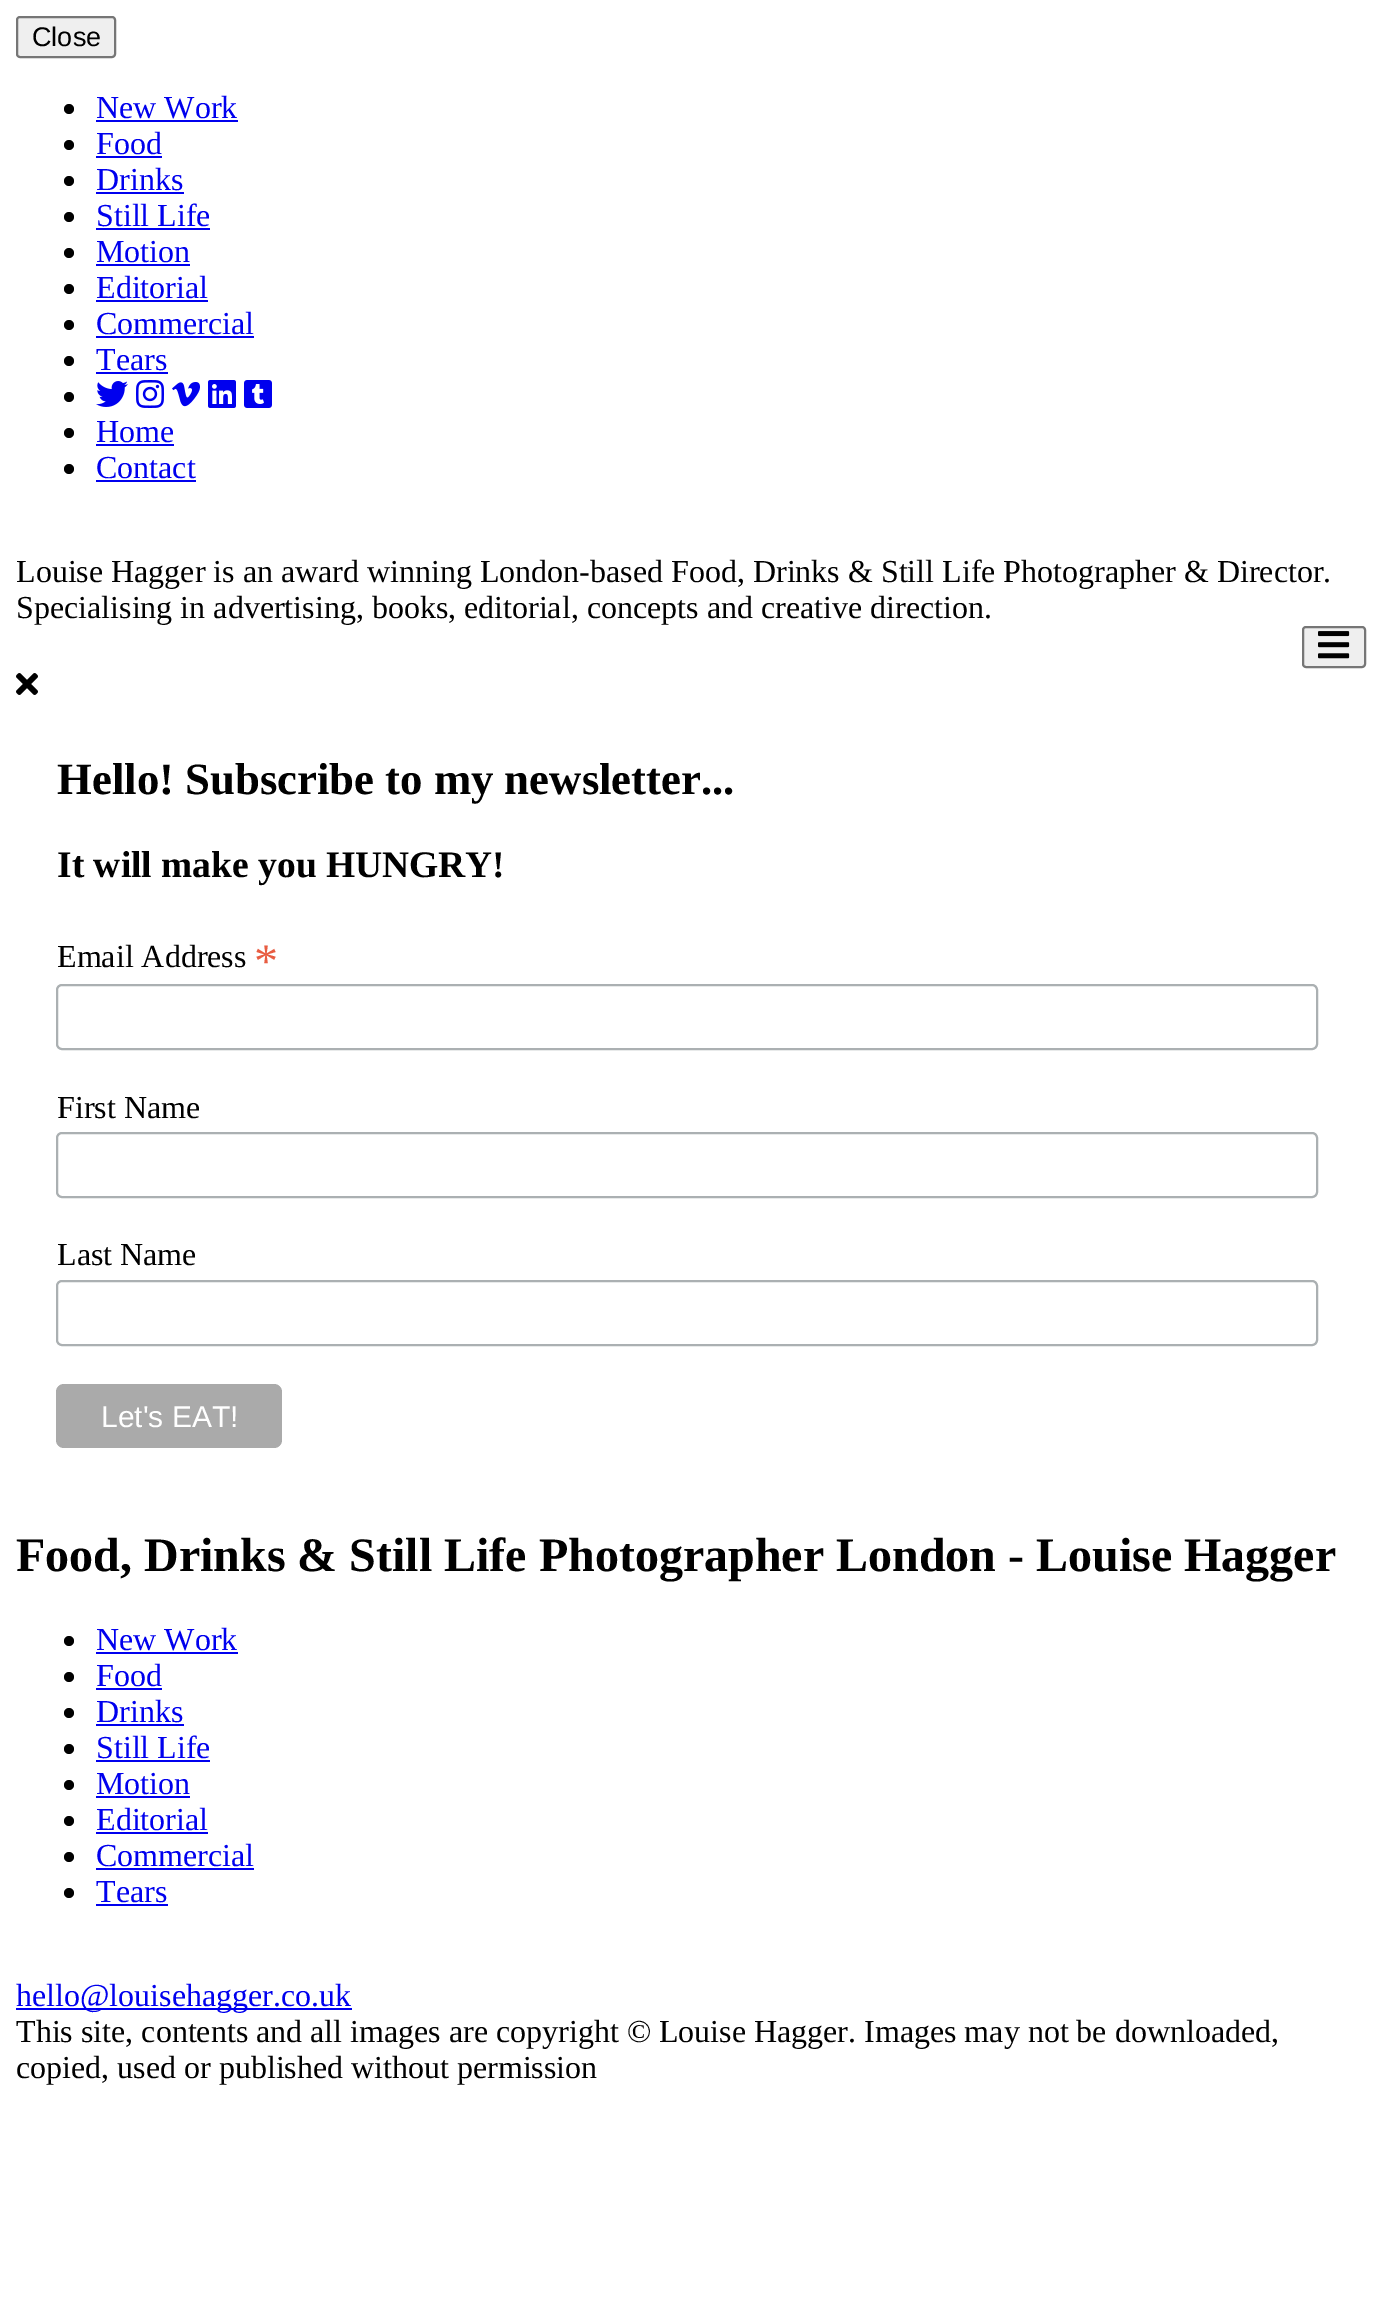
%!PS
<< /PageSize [1381 2322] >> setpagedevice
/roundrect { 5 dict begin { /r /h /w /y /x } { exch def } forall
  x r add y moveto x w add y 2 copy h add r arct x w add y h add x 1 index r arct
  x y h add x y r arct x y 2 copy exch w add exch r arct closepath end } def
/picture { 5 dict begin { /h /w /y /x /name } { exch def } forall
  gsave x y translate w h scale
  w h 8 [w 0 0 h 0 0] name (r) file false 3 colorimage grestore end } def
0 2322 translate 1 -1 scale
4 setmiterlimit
1 setgray
0 0 1381 2322 rectfill
0.937 setgray
17 17 98 40 3 roundrect gsave fill grestore
0.463 setgray
2 setlinewidth
stroke
/LiberationSans-Regular [27 0 0 -27 0 0] selectfont
0 setgray
32 46 moveto (Close) show
newpath 69 109 5 0 360 arc closepath fill
/LiberationSerif-Regular [32 0 0 -32 0 0] selectfont
0 0 0.933 setrgbcolor
96 118 moveto (New Work) show
96 120 142 2 rectfill
0 setgray
newpath 69 145 5 0 360 arc closepath fill
0 0 0.933 setrgbcolor
96 154 moveto (Food) show
96 156 66 2 rectfill
0 setgray
newpath 69 181 5 0 360 arc closepath fill
0 0 0.933 setrgbcolor
96 190 moveto (Drinks) show
96 192 88 2 rectfill
0 setgray
newpath 69 217 5 0 360 arc closepath fill
0 0 0.933 setrgbcolor
96 226 moveto (Still Life) show
96 228 114 2 rectfill
0 setgray
newpath 69 253 5 0 360 arc closepath fill
0 0 0.933 setrgbcolor
96 262 moveto (Motion) show
96 264 94 2 rectfill
0 setgray
newpath 69 289 5 0 360 arc closepath fill
0 0 0.933 setrgbcolor
96 298 moveto (Editorial) show
96 300 112 2 rectfill
0 setgray
newpath 69 325 5 0 360 arc closepath fill
0 0 0.933 setrgbcolor
96 334 moveto (Commercial) show
96 336 158 2 rectfill
0 setgray
newpath 69 361 5 0 360 arc closepath fill
0 0 0.933 setrgbcolor
96 370 moveto (Tears) show
96 372 72 2 rectfill
0 setgray
newpath 69 397 5 0 360 arc closepath fill
(img1.rgb) 96 381 32 26 picture
(img2.rgb) 136 380 28 28 picture
(img3.rgb) 172 382 28 25 picture
(img4.rgb) 208 380 28 28 picture
(img5.rgb) 244 380 28 28 picture
newpath 69 433 5 0 360 arc closepath fill
0 0 0.933 setrgbcolor
96 442 moveto (Home) show
96 444 78 2 rectfill
0 setgray
newpath 69 469 5 0 360 arc closepath fill
0 0 0.933 setrgbcolor
96 478 moveto (Contact) show
96 480 100 2 rectfill
0 setgray
16 582 moveto (Louise Hagger is an award winning London-based Food, Drinks & Still Life Photographer & Director.) show
16 618 moveto (Specialising in advertising, books, editorial, concepts and creative direction.) show
0.937 setgray
1303 627 62 40 3 roundrect gsave fill grestore
0.463 setgray
stroke
(img6.rgb) 1318 631 32 28 picture
(img7.rgb) 16 673 22 22 picture
/LiberationSerif-Bold [44.75 0 0 -44.75 0 0] selectfont
0 setgray
57 794 moveto (Hello! Subscribe to my newsletter...) show
/LiberationSerif-Bold [37.5 0 0 -37.5 0 0] selectfont
57 877 moveto (It will make you HUNGRY!) show
/LiberationSerif-Regular [32 0 0 -32 0 0] selectfont
57 967 moveto (Email Address) show
/LiberationSerif-Regular [48 0 0 -48 0 0] selectfont
0.91 0.361 0.255 setrgbcolor
254 977 moveto (*) show
0.671 0.69 0.698 setrgbcolor
57 985 1260 64 5 roundrect stroke
/LiberationSerif-Regular [32 0 0 -32 0 0] selectfont
0 setgray
57 1118 moveto (First Name) show
0.671 0.69 0.698 setrgbcolor
57 1133 1260 64 5 roundrect stroke
0 setgray
57 1265 moveto (Last Name) show
0.671 0.69 0.698 setrgbcolor
57 1281 1260 64 5 roundrect stroke
0.667 setgray
56 1384 226 64 8 roundrect fill
/LiberationSans-Regular [30 0 0 -30 0 0] selectfont
1 setgray
101 1427 moveto (Let's EAT!) show
/LiberationSerif-Bold [48 0 0 -48 0 0] selectfont
0 setgray
16 1571 moveto (Food, Drinks & Still Life Photographer London - Louise Hagger) show
newpath 69 1641 5 0 360 arc closepath fill
/LiberationSerif-Regular [32 0 0 -32 0 0] selectfont
0 0 0.933 setrgbcolor
96 1650 moveto (New Work) show
96 1652 142 2 rectfill
0 setgray
newpath 69 1677 5 0 360 arc closepath fill
0 0 0.933 setrgbcolor
96 1686 moveto (Food) show
96 1688 66 2 rectfill
0 setgray
newpath 69 1713 5 0 360 arc closepath fill
0 0 0.933 setrgbcolor
96 1722 moveto (Drinks) show
96 1724 88 2 rectfill
0 setgray
newpath 69 1749 5 0 360 arc closepath fill
0 0 0.933 setrgbcolor
96 1758 moveto (Still Life) show
96 1760 114 2 rectfill
0 setgray
newpath 69 1785 5 0 360 arc closepath fill
0 0 0.933 setrgbcolor
96 1794 moveto (Motion) show
96 1796 94 2 rectfill
0 setgray
newpath 69 1821 5 0 360 arc closepath fill
0 0 0.933 setrgbcolor
96 1830 moveto (Editorial) show
96 1832 112 2 rectfill
0 setgray
newpath 69 1857 5 0 360 arc closepath fill
0 0 0.933 setrgbcolor
96 1866 moveto (Commercial) show
96 1868 158 2 rectfill
0 setgray
newpath 69 1893 5 0 360 arc closepath fill
0 0 0.933 setrgbcolor
96 1902 moveto (Tears) show
96 1904 72 2 rectfill
16 2008 336 2 rectfill
16 2006 moveto (hello@louisehagger.co.uk) show
0 setgray
16 2042 moveto (This site, contents and all images are copyright © Louise Hagger. Images may not be downloaded,) show
16 2078 moveto (copied, used or published without permission) show
showpage
